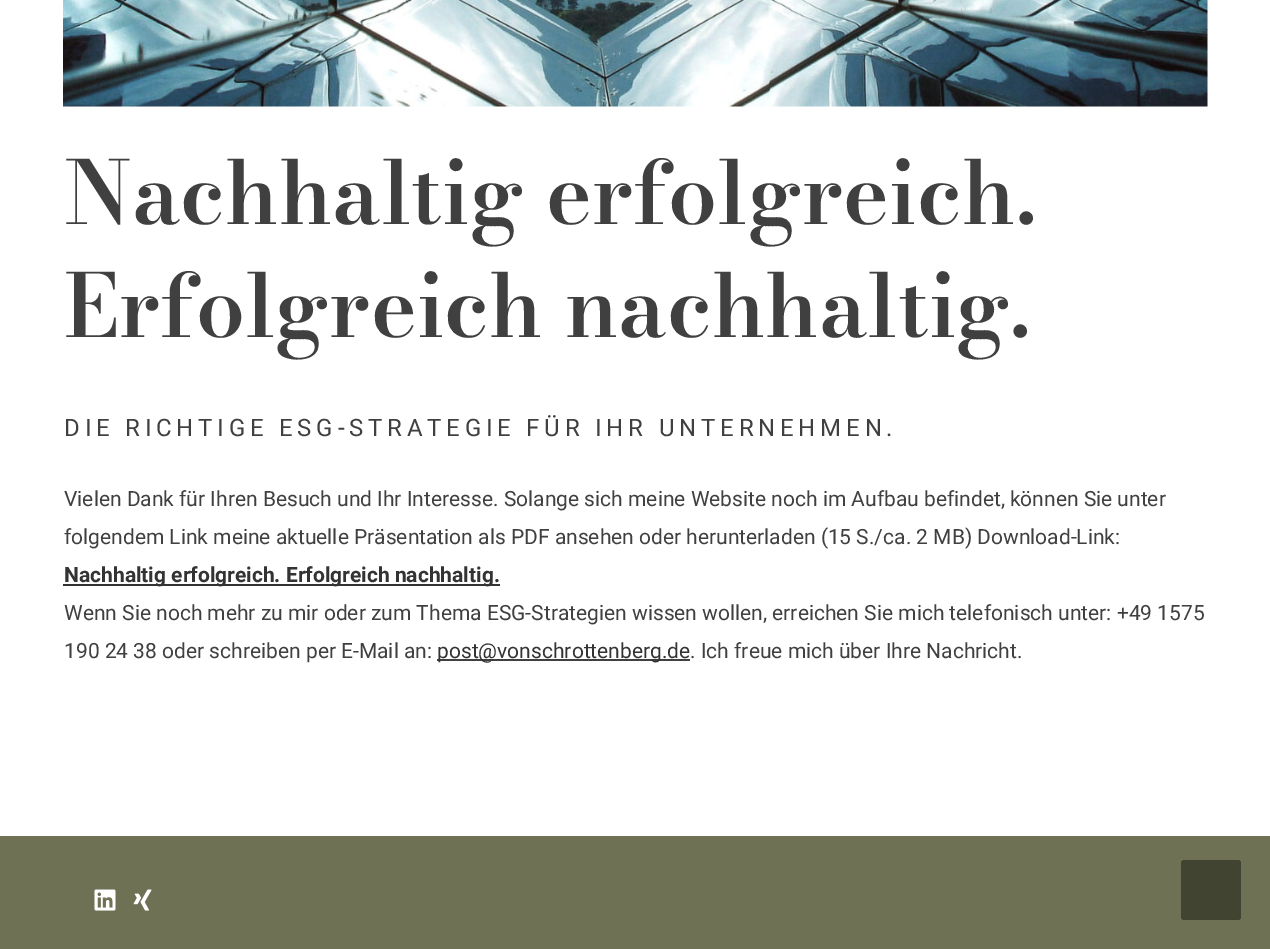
%!PS
<< /PageSize [1270 949] >> setpagedevice
/roundrect { 5 dict begin { /r /h /w /y /x } { exch def } forall
  x r add y moveto x w add y 2 copy h add r arct x w add y h add x 1 index r arct
  x y h add x y r arct x y 2 copy exch w add exch r arct closepath end } def
/picture { 5 dict begin { /h /w /y /x /name } { exch def } forall
  gsave x y translate w h scale
  w h 8 [w 0 0 h 0 0] name (r) file false 3 colorimage grestore end } def
0 949 translate 1 -1 scale
4 setmiterlimit
1 setgray
0 0 1270 949 rectfill
(img1.rgb) 63 0 1145 107 picture
/BodoniModa-SemiBold [87 0 0 -87 0 0] selectfont
0.251 setgray
64 224 moveto (Nachhaltig erfolgreich.) show
64 337 moveto (Erfolgreich nachhaltig.) show
/Roboto-Regular [24 0 0 -24 0 0] selectfont
64 436 moveto 4.8 0 (DIE RICHTIGE ESG-STRATEGIE FÜR IHR UNTERNEHMEN.) ashow
/Roboto-Regular [21 0 0 -21 0 0] selectfont
64 506 moveto (Vielen Dank für Ihren Besuch und Ihr Interesse. Solange sich meine Website noch im Aufbau befindet, können Sie unter) show
64 544 moveto (folgendem Link meine aktuelle Präsentation als PDF ansehen oder herunterladen \(15 S./ca. 2 MB\) Download-Link:) show
0.2 setgray
63 584 437 2 rectfill
/Roboto-Bold [21 0 0 -21 0 0] selectfont
64 582 moveto (Nachhaltig erfolgreich. Erfolgreich nachhaltig.) show
/Roboto-Regular [21 0 0 -21 0 0] selectfont
0.251 setgray
64 620 moveto (Wenn Sie noch mehr zu mir oder zum Thema ESG-Strategien wissen wollen, erreichen Sie mich telefonisch unter: +49 1575) show
64 658 moveto (190 24 38 oder schreiben per E-Mail an:) show
437 659 253 2 rectfill
0.2 setgray
437 658 moveto (post@vonschrottenberg.de) show
0.251 setgray
690 658 moveto (. Ich freue mich über Ihre Nachricht.) show
0.431 0.443 0.329 setrgbcolor
0 836 1270 113 rectfill
(img2.rgb) 94 889 22 22 picture
(img3.rgb) 133 889 19 22 picture
0.259 0.267 0.196 setrgbcolor
1181 860 60 60 3 roundrect fill
showpage
